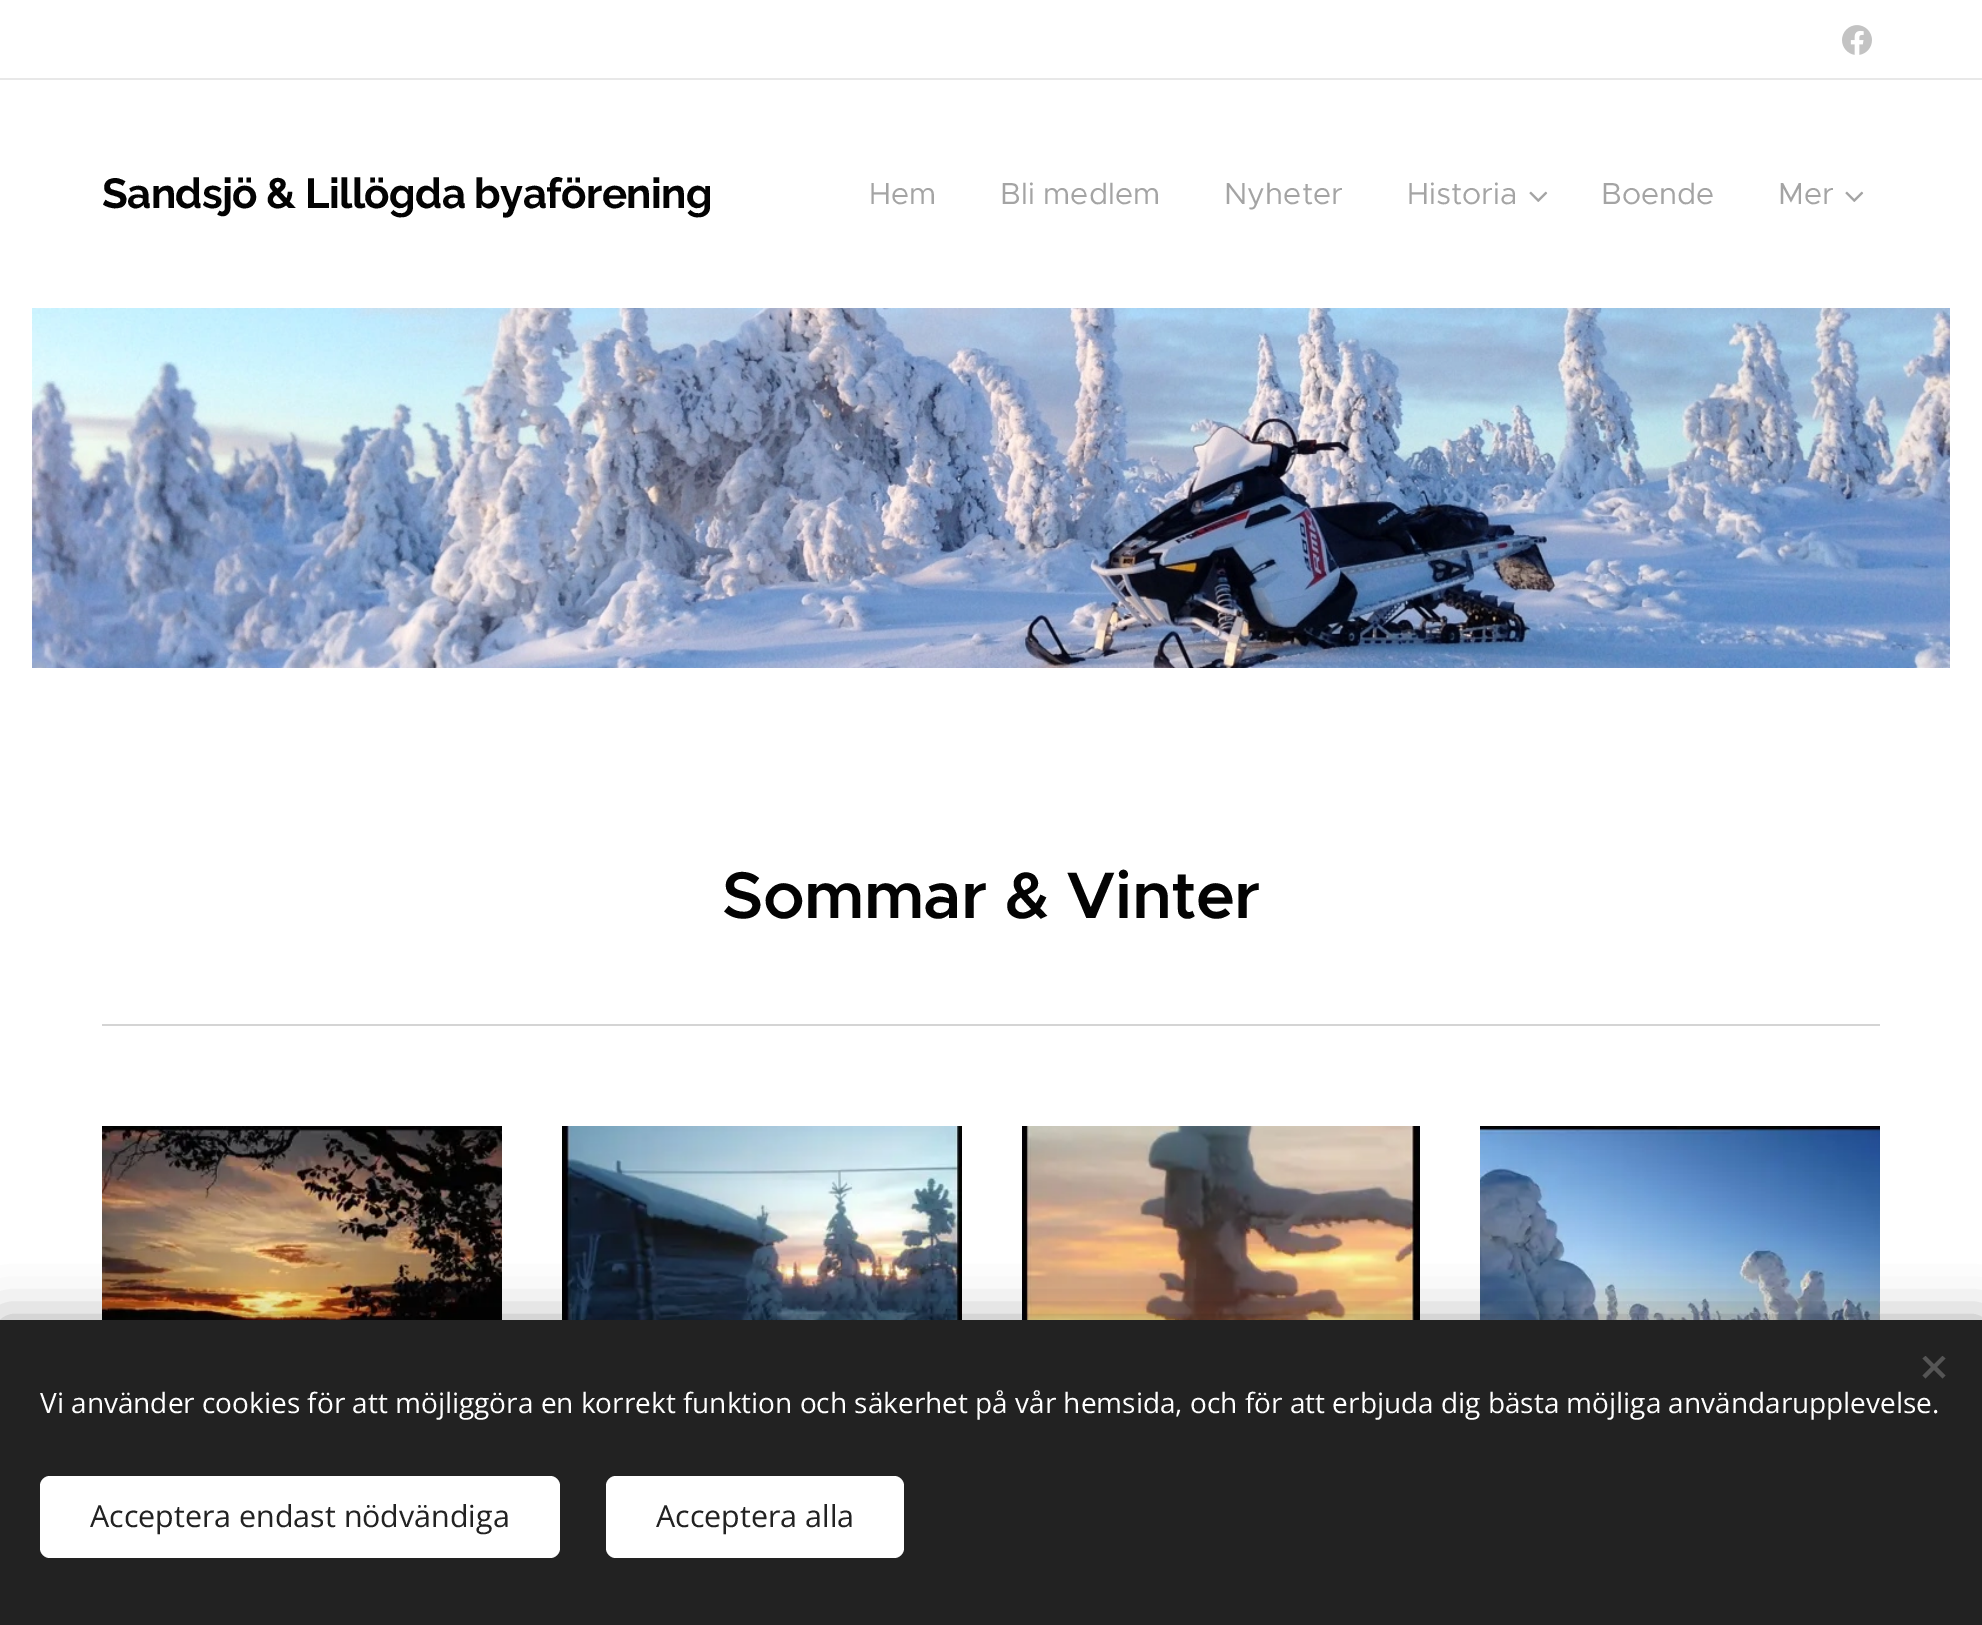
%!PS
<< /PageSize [1982 1625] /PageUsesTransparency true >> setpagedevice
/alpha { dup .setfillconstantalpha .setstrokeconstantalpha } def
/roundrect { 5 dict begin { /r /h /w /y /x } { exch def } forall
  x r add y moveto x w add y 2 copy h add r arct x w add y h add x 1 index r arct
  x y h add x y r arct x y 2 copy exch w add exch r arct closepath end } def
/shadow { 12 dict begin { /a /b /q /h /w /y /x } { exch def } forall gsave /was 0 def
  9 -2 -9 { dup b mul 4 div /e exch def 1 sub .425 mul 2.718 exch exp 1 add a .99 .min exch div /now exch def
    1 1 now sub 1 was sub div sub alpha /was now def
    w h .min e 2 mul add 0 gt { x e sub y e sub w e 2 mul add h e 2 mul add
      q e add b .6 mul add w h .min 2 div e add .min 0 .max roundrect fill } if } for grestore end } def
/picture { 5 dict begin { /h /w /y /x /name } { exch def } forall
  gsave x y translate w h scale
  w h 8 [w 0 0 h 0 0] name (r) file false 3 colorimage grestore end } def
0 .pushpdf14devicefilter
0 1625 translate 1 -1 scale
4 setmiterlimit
1 setgray
0 0 1982 1625 rectfill
(img1.rgb) 1842 25 30 30 picture
0.91 setgray
0 78 1982 2 rectfill
/Raleway-Bold [42 0 0 -42 0 0] selectfont
0.012 setgray
102 208 moveto -0.65 0 (Sandsjö & Lillögda byaförening) ashow
/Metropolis-Regular [30.4 0 0 -30.4 0 0] selectfont
0.643 setgray
869 204 moveto (Hem) show
1000 204 moveto (Bli medlem) show
1224 204 moveto (Nyheter) show
1407 204 moveto (Historia) show
(img2.rgb) 1529 191 19 11 picture
1601 204 moveto (Boende) show
1778 204 moveto (Mer) show
(img2.rgb) 1845 191 19 11 picture
(img3.rgb) 32 308 1918 360 picture
/Metropolis-SemiBold [66 0 0 -66 0 0] selectfont
0.012 setgray
722 918 moveto -0.7 0 (Sommar & Vinter) ashow
0.831 setgray
102 1024 1778 2 rectfill
(img4.rgb) 102 1126 400 194 picture
(img5.rgb) 562 1126 400 194 picture
(img6.rgb) 1022 1126 398 194 picture
(img7.rgb) 1480 1126 400 194 picture
0 setgray
0 1320 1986 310 0 25 0.33 shadow
0.133 setgray
0 1320 1982 305 rectfill
0.333 setgray
newpath 1922.5 1375.5 moveto 1942.5 1356 lineto 1945.5 1358.5 lineto 1925.5 1378.5 lineto closepath fill
newpath 1925.5 1356 moveto 1945.5 1375.5 lineto 1942.5 1378.5 lineto 1922.5 1358.5 lineto closepath fill
/OpenSans-Regular [28 0 0 -28 0 0] selectfont
1 setgray
40 1413 moveto (Vi använder cookies för att möjliggöra en korrekt funktion och säkerhet på vår hemsida, och för att erbjuda dig bästa möjliga användarupplevelse.) show
40 1476 520 82 10 roundrect fill
/OpenSans-Regular [30.4 0 0 -30.4 0 0] selectfont
0.133 setgray
90 1527 moveto (Acceptera endast nödvändiga) show
1 setgray
606 1476 298 82 10 roundrect fill
0.133 setgray
656 1527 moveto (Acceptera alla) show
.poppdf14devicefilter showpage
